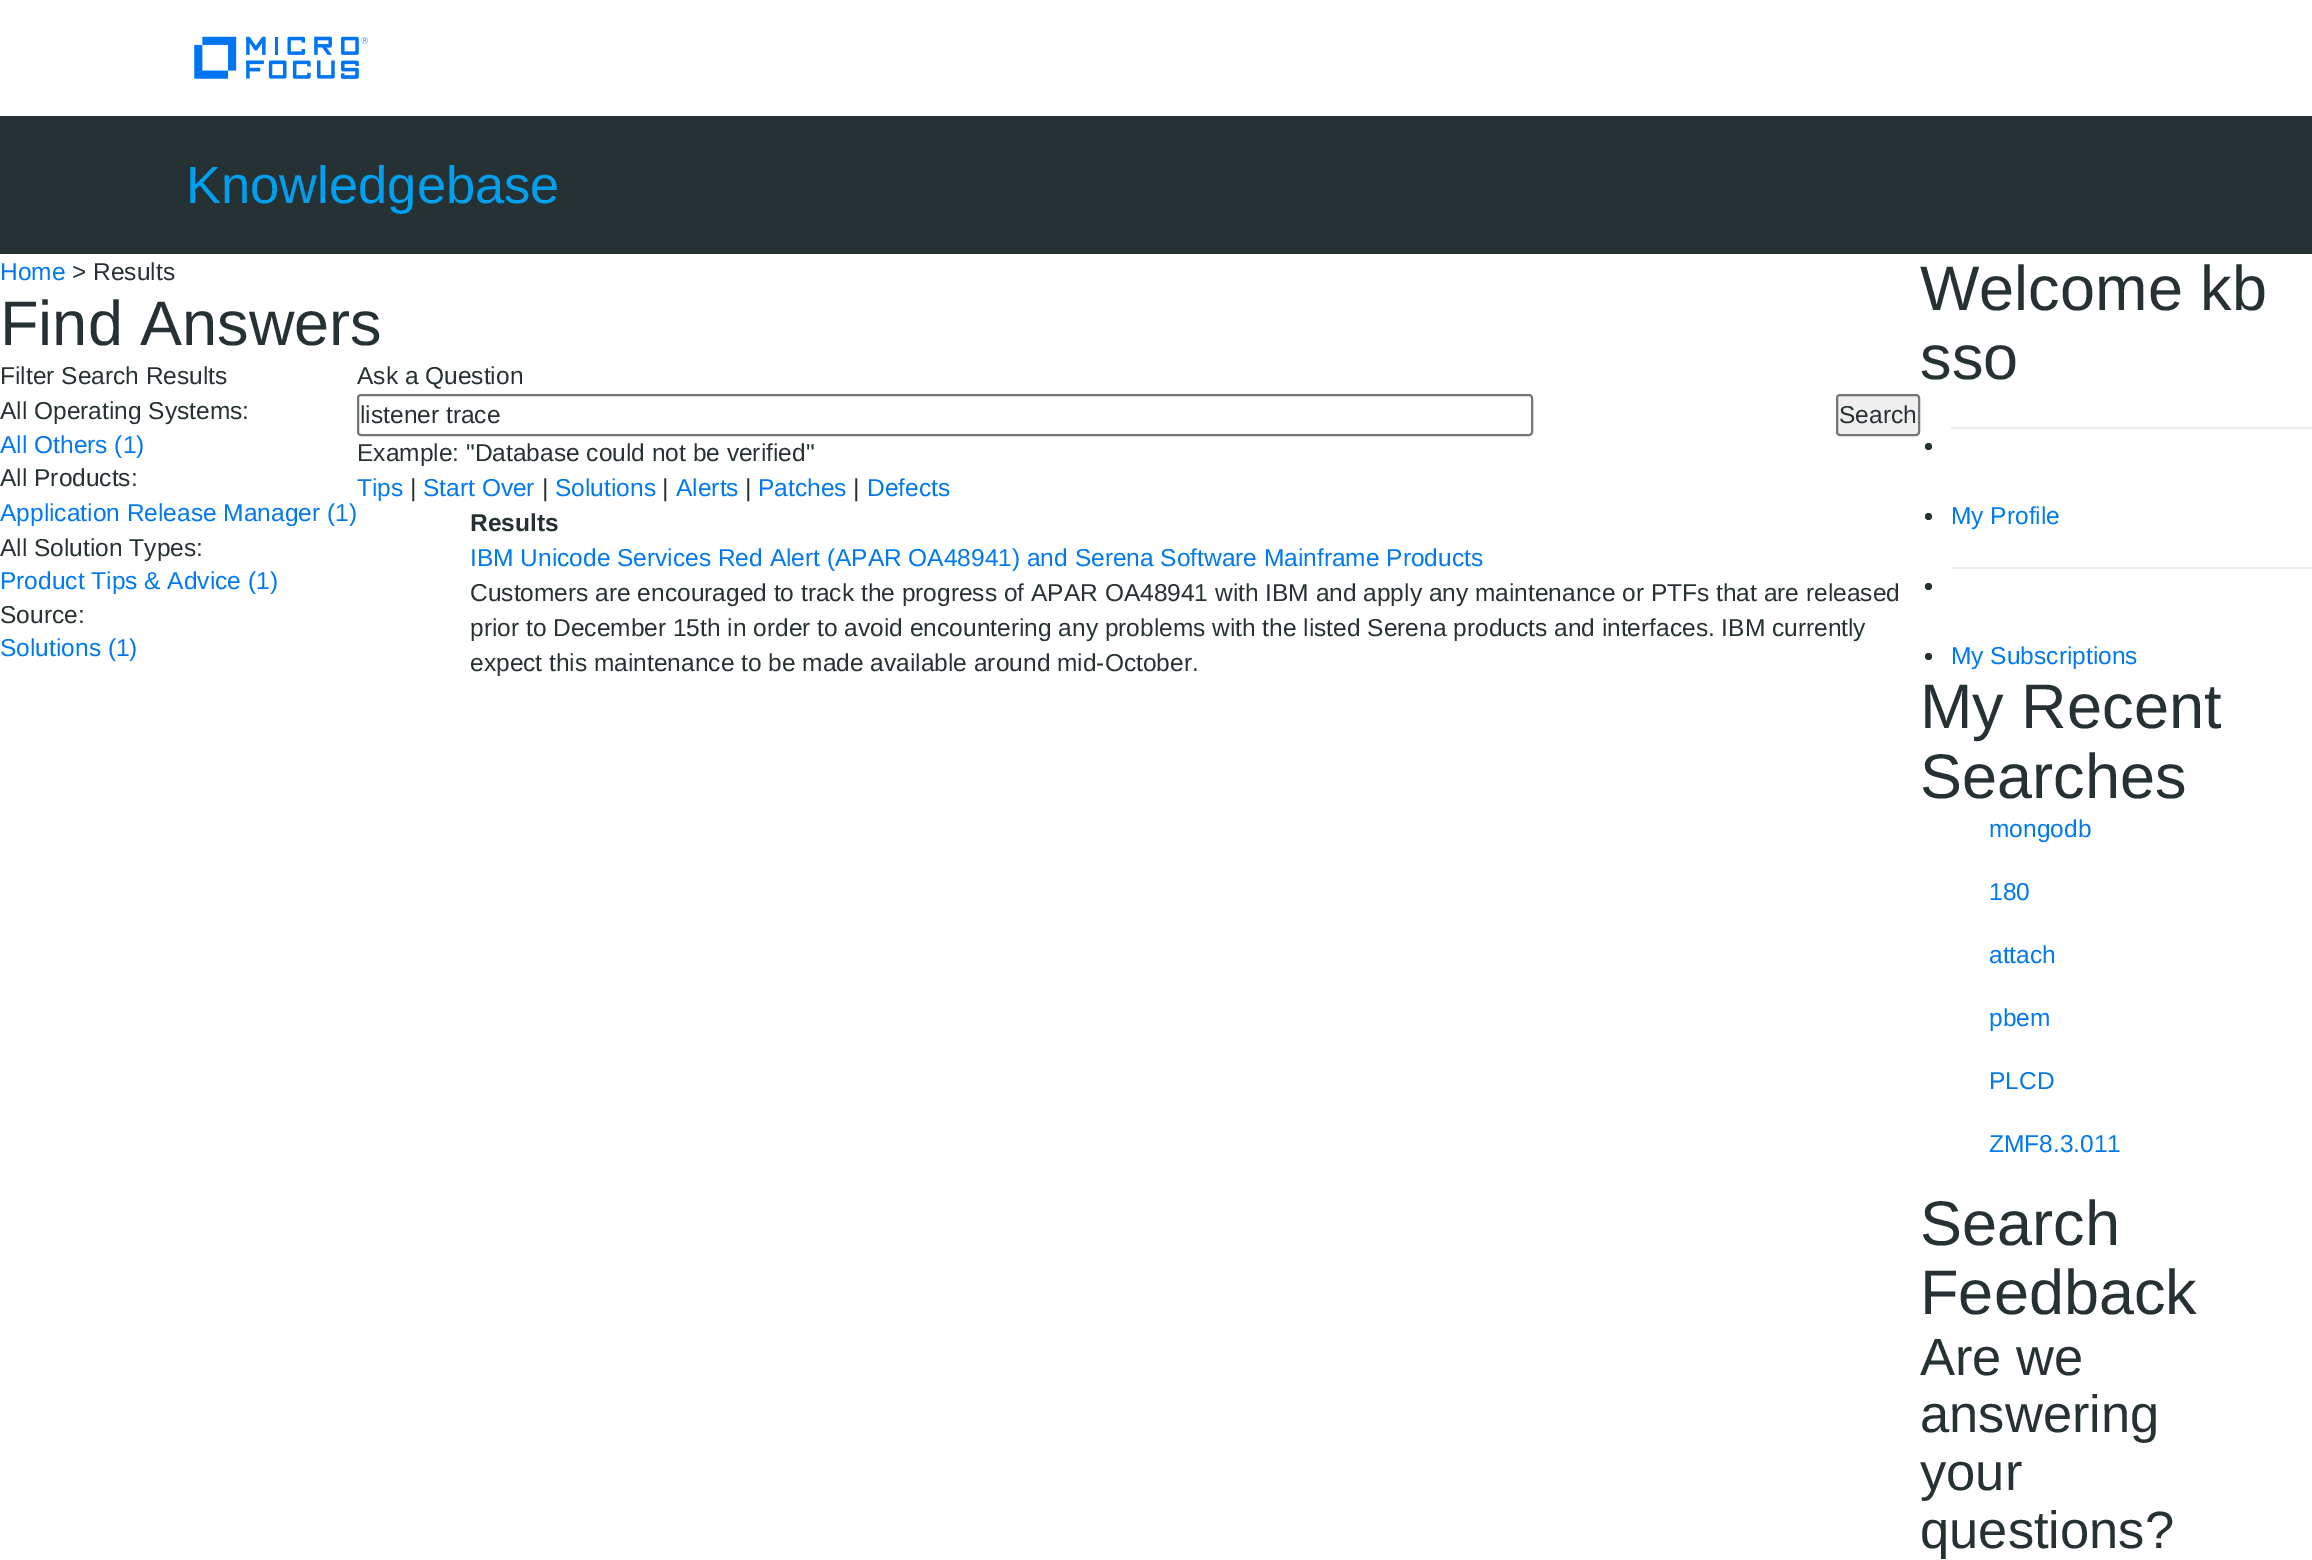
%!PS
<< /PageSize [2312 1560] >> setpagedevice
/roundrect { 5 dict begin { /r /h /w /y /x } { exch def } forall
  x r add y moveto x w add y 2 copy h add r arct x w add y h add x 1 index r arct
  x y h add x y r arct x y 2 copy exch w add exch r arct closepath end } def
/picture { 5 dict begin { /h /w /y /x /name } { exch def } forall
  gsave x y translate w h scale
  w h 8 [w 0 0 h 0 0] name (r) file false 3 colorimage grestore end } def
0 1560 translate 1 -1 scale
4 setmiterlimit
1 setgray
0 0 2312 1560 rectfill
(img1.rgb) 194 36 174 43 picture
0.149 0.192 0.2 setrgbcolor
0 116 2312 138 rectfill
/LiberationSans-Regular [52.5 0 0 -52.5 0 0] selectfont
0 0.627 0.937 setrgbcolor
186 203 moveto (Knowledgebase) show
/LiberationSans-Regular [24.5 0 0 -24.5 0 0] selectfont
0 0.471 0.937 setrgbcolor
0 280 moveto (Home) show
0.149 0.192 0.2 setrgbcolor
72 280 moveto (> Results) show
/LiberationSans-Regular [63 0 0 -63 0 0] selectfont
0 345 moveto (Find Answers) show
/LiberationSans-Regular [24.5 0 0 -24.5 0 0] selectfont
0 384 moveto (Filter Search Results) show
0 419 moveto (All Operating Systems:) show
0 0.471 0.937 setrgbcolor
0 453 moveto (All Others \(1\)) show
0.149 0.192 0.2 setrgbcolor
0 486 moveto (All Products:) show
0 0.471 0.937 setrgbcolor
0 521 moveto (Application Release Manager \(1\)) show
0.149 0.192 0.2 setrgbcolor
0 556 moveto (All Solution Types:) show
0 0.471 0.937 setrgbcolor
0 589 moveto (Product Tips & Advice \(1\)) show
0.149 0.192 0.2 setrgbcolor
0 623 moveto (Source:) show
0 0.471 0.937 setrgbcolor
0 656 moveto (Solutions \(1\)) show
0.149 0.192 0.2 setrgbcolor
357 384 moveto (Ask a Question) show
0.463 setgray
2 setlinewidth
358 395 1174 40 3 roundrect stroke
0.149 0.192 0.2 setrgbcolor
360 423 moveto (listener trace) show
0.937 setgray
1837 395 82 40 3 roundrect gsave fill grestore
0.463 setgray
stroke
0.149 0.192 0.2 setrgbcolor
1839 423 moveto (Search) show
357 461 moveto (Example: "Database could not be verified") show
0 0.471 0.937 setrgbcolor
357 496 moveto (Tips) show
0.149 0.192 0.2 setrgbcolor
410 496 moveto (|) show
0 0.471 0.937 setrgbcolor
423 496 moveto (Start Over) show
0.149 0.192 0.2 setrgbcolor
542 496 moveto (|) show
0 0.471 0.937 setrgbcolor
555 496 moveto (Solutions) show
0.149 0.192 0.2 setrgbcolor
662 496 moveto (|) show
0 0.471 0.937 setrgbcolor
676 496 moveto (Alerts) show
0.149 0.192 0.2 setrgbcolor
745 496 moveto (|) show
0 0.471 0.937 setrgbcolor
758 496 moveto (Patches) show
0.149 0.192 0.2 setrgbcolor
853 496 moveto (|) show
0 0.471 0.937 setrgbcolor
867 496 moveto (Defects) show
/LiberationSans-Bold [24.5 0 0 -24.5 0 0] selectfont
0.149 0.192 0.2 setrgbcolor
470 531 moveto (Results) show
/LiberationSans-Regular [24.5 0 0 -24.5 0 0] selectfont
0 0.471 0.937 setrgbcolor
470 566 moveto (IBM Unicode Services Red Alert \(APAR OA48941\) and Serena Software Mainframe Products) show
0.149 0.192 0.2 setrgbcolor
470 601 moveto (Customers are encouraged to track the progress of APAR OA48941 with IBM and apply any maintenance or PTFs that are released) show
470 636 moveto (prior to December 15th in order to avoid encountering any problems with the listed Serena products and interfaces. IBM currently) show
470 671 moveto (expect this maintenance to be made available around mid-October.) show
/LiberationSans-Regular [63 0 0 -63 0 0] selectfont
1920 310 moveto (Welcome kb) show
1920 379 moveto (sso) show
0.933 setgray
1951 427 361 2 rectfill
0.149 0.192 0.2 setrgbcolor
newpath 1928.5 446.5 3.5 0 360 arc closepath fill
newpath 1928.5 516.5 3.5 0 360 arc closepath fill
/LiberationSans-Regular [24.5 0 0 -24.5 0 0] selectfont
0 0.471 0.937 setrgbcolor
1951 524 moveto (My Profile) show
0.933 setgray
1951 567 361 2 rectfill
0.149 0.192 0.2 setrgbcolor
newpath 1928.5 586.5 3.5 0 360 arc closepath fill
newpath 1928.5 656.5 3.5 0 360 arc closepath fill
0 0.471 0.937 setrgbcolor
1951 664 moveto (My Subscriptions) show
/LiberationSans-Regular [63 0 0 -63 0 0] selectfont
0.149 0.192 0.2 setrgbcolor
1920 728 moveto (My Recent) show
1920 798 moveto (Searches) show
/LiberationSans-Regular [24.5 0 0 -24.5 0 0] selectfont
0 0.471 0.937 setrgbcolor
1989 837 moveto (mongodb) show
1989 900 moveto (180) show
1989 963 moveto (attach) show
1989 1026 moveto (pbem) show
1989 1089 moveto (PLCD) show
1989 1152 moveto (ZMF8.3.011) show
/LiberationSans-Regular [63 0 0 -63 0 0] selectfont
0.149 0.192 0.2 setrgbcolor
1920 1245 moveto (Search) show
1920 1314 moveto (Feedback) show
/LiberationSans-Regular [52.5 0 0 -52.5 0 0] selectfont
1920 1375 moveto (Are we) show
1920 1432 moveto (answering) show
1920 1490 moveto (your) show
1920 1548 moveto (questions?) show
showpage
